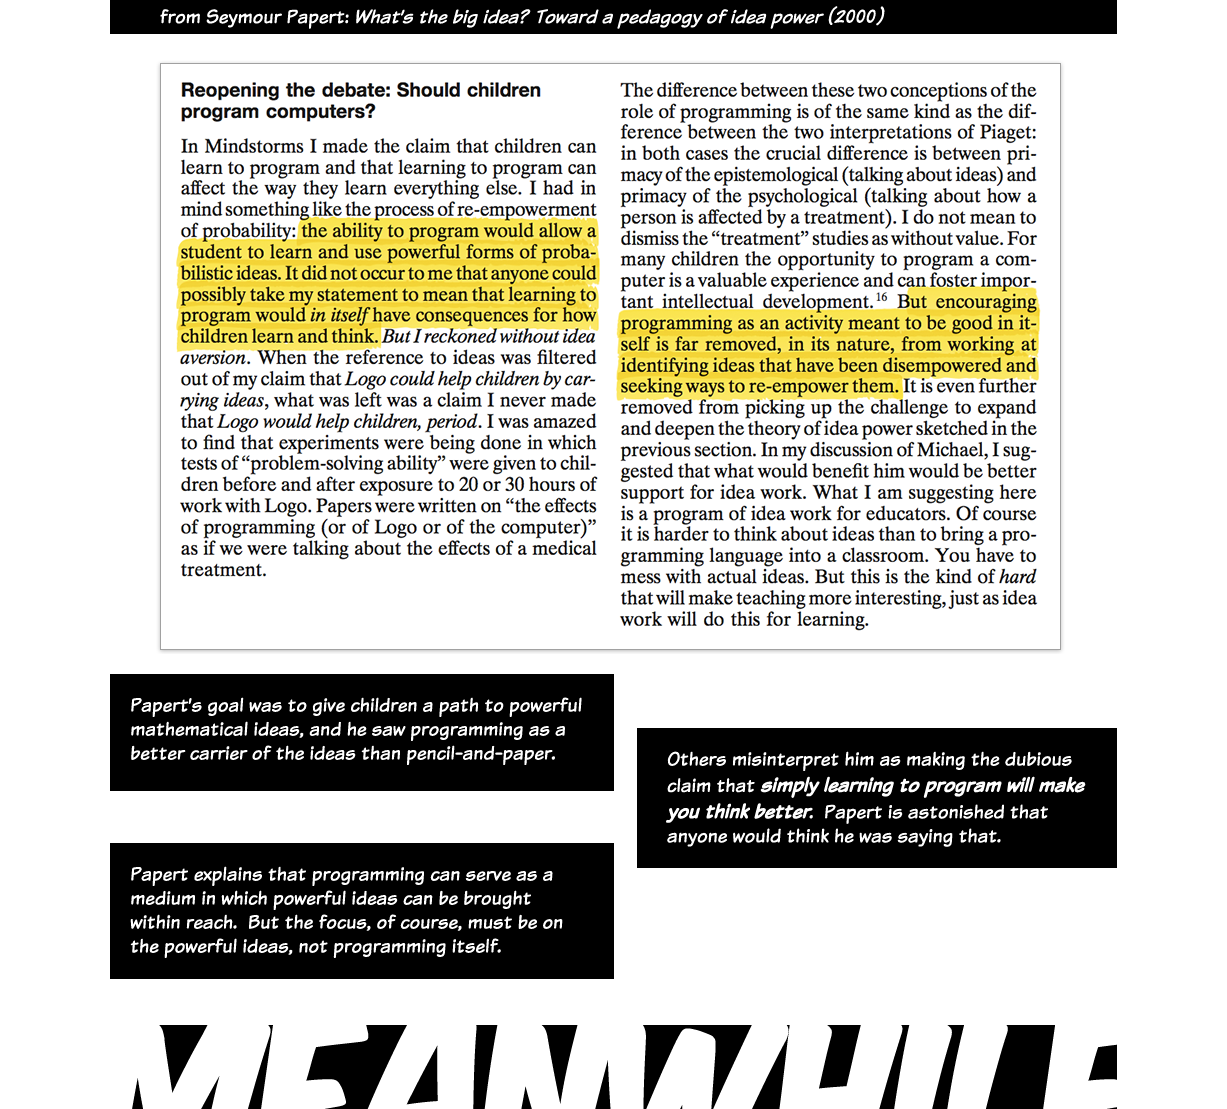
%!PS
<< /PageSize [1227 1109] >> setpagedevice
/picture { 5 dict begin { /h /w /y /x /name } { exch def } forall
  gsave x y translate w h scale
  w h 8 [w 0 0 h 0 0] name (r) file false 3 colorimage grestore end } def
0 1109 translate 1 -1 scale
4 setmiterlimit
1 setgray
0 0 1227 1109 rectfill
(img1.rgb) 110 0 1007 654 picture
(img2.rgb) 110 674 1007 435 picture
showpage
